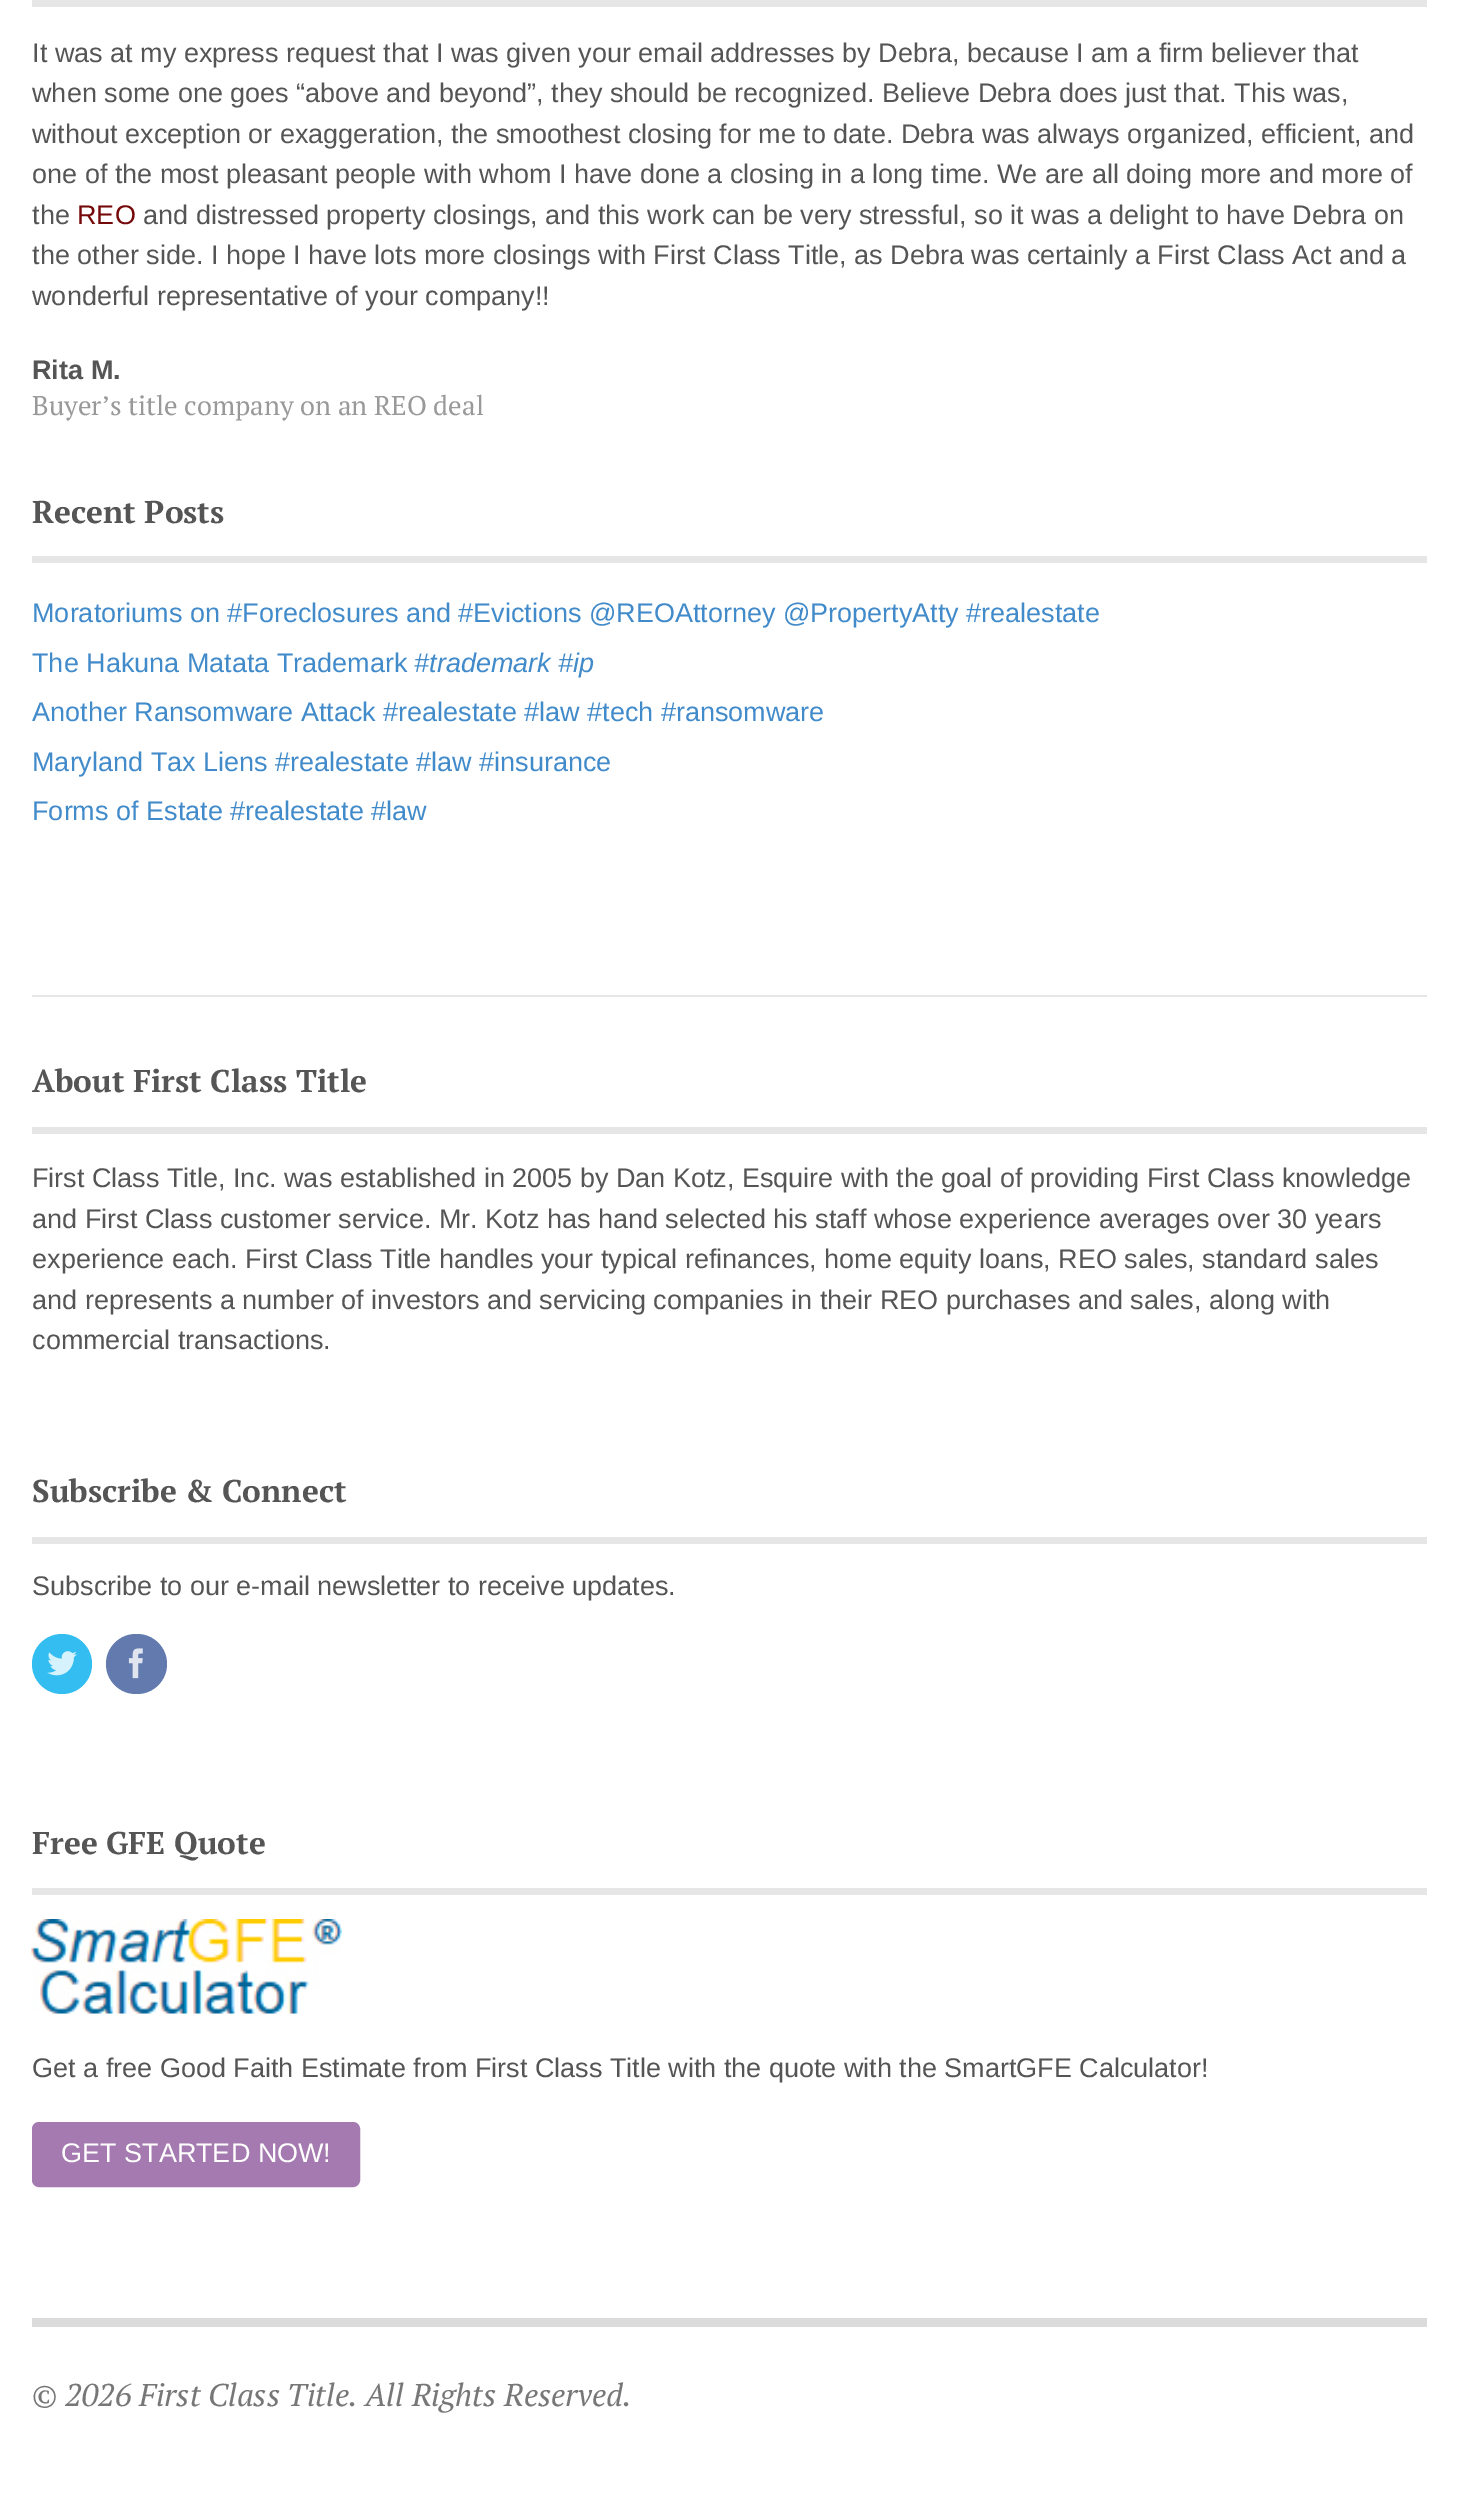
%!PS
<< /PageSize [1458 2498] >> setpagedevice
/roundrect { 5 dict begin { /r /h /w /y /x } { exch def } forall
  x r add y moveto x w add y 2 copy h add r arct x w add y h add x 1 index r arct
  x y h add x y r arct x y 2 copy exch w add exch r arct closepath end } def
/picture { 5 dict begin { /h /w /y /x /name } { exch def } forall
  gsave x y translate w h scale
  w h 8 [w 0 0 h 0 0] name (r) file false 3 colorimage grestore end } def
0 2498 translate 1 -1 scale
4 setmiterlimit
1 setgray
0 0 1458 2498 rectfill
0.902 setgray
32 0 1395 7 rectfill
/LiberationSans-Regular [27 0 0 -27 0 0] selectfont
0.333 setgray
32 62 moveto (It was at my express request that I was given your email addresses by Debra, because I am a firm believer that) show
32 102 moveto (when some one goes “above and beyond”, they should be recognized. Believe Debra does just that. This was,) show
32 143 moveto (without exception or exaggeration, the smoothest closing for me to date. Debra was always organized, efficient, and) show
32 183 moveto (one of the most pleasant people with whom I have done a closing in a long time. We are all doing more and more of) show
32 224 moveto (the) show
0.459 0.035 0.035 setrgbcolor
77 224 moveto (REO) show
0.333 setgray
143 224 moveto (and distressed property closings, and this work can be very stressful, so it was a delight to have Debra on) show
32 264 moveto (the other side. I hope I have lots more closings with First Class Title, as Debra was certainly a First Class Act and a) show
32 305 moveto (wonderful representative of your company!!) show
/LiberationSans-Bold [27 0 0 -27 0 0] selectfont
32 379 moveto (Rita M.) show
/PTSerif-Regular [27 0 0 -27 0 0] selectfont
0.6 setgray
32 415 moveto (Buyer’s title company on an REO deal) show
0.902 setgray
32 556 1395 7 rectfill
/PTSerif-Bold [31.5 0 0 -31.5 0 0] selectfont
0.333 setgray
32 523 moveto (Recent Posts) show
/LiberationSans-Regular [27 0 0 -27 0 0] selectfont
0.259 0.545 0.792 setrgbcolor
32 622 moveto (Moratoriums on #Foreclosures and #Evictions @REOAttorney @PropertyAtty #realestate) show
32 672 moveto (The Hakuna Matata Trademark) show
/LiberationSans-Italic [27 0 0 -27 0 0] selectfont
414 672 moveto (#trademark #ip) show
/LiberationSans-Regular [27 0 0 -27 0 0] selectfont
32 721 moveto (Another Ransomware Attack #realestate #law #tech #ransomware) show
32 771 moveto (Maryland Tax Liens #realestate #law #insurance) show
32 820 moveto (Forms of Estate #realestate #law) show
0.902 setgray
32 995 1395 2 rectfill
32 1127 1395 7 rectfill
/PTSerif-Bold [31.5 0 0 -31.5 0 0] selectfont
0.333 setgray
32 1092 moveto (About First Class Title) show
/LiberationSans-Regular [27 0 0 -27 0 0] selectfont
32 1187 moveto (First Class Title, Inc. was established in 2005 by Dan Kotz, Esquire with the goal of providing First Class knowledge) show
32 1228 moveto (and First Class customer service. Mr. Kotz has hand selected his staff whose experience averages over 30 years) show
32 1268 moveto (experience each. First Class Title handles your typical refinances, home equity loans, REO sales, standard sales) show
32 1309 moveto (and represents a number of investors and servicing companies in their REO purchases and sales, along with) show
32 1349 moveto (commercial transactions.) show
0.902 setgray
32 1537 1395 7 rectfill
/PTSerif-Bold [31.5 0 0 -31.5 0 0] selectfont
0.333 setgray
32 1502 moveto (Subscribe & Connect) show
/LiberationSans-Regular [27 0 0 -27 0 0] selectfont
32 1595 moveto (Subscribe to our e-mail newsletter to receive updates.) show
0.2 0.741 0.945 setrgbcolor
newpath 62 1664 30 0 360 arc closepath fill
(img1.rgb) 47 1651 30 25 picture
0.384 0.478 0.678 setrgbcolor
106 1634 61 60 30 roundrect fill
(img2.rgb) 128 1648 15 31 picture
0.902 setgray
32 1888 1395 7 rectfill
/PTSerif-Bold [31.5 0 0 -31.5 0 0] selectfont
0.333 setgray
32 1854 moveto (Free GFE Quote) show
(img3.rgb) 31 1919 311 95 picture
/LiberationSans-Regular [27 0 0 -27 0 0] selectfont
32 2077 moveto (Get a free Good Faith Estimate from First Class Title with the quote with the SmartGFE Calculator!) show
0.647 0.478 0.69 setrgbcolor
33 2123 326 63 6 roundrect gsave fill grestore
2 setlinewidth
stroke
1 setgray
61 2162 moveto (GET STARTED NOW!) show
0.859 setgray
32 2318 1395 9 rectfill
/PTSerif-Italic [31.5 0 0 -31.5 0 0] selectfont
0.467 setgray
32 2406 moveto (© 2026 First Class Title. All Rights Reserved.) show
showpage
